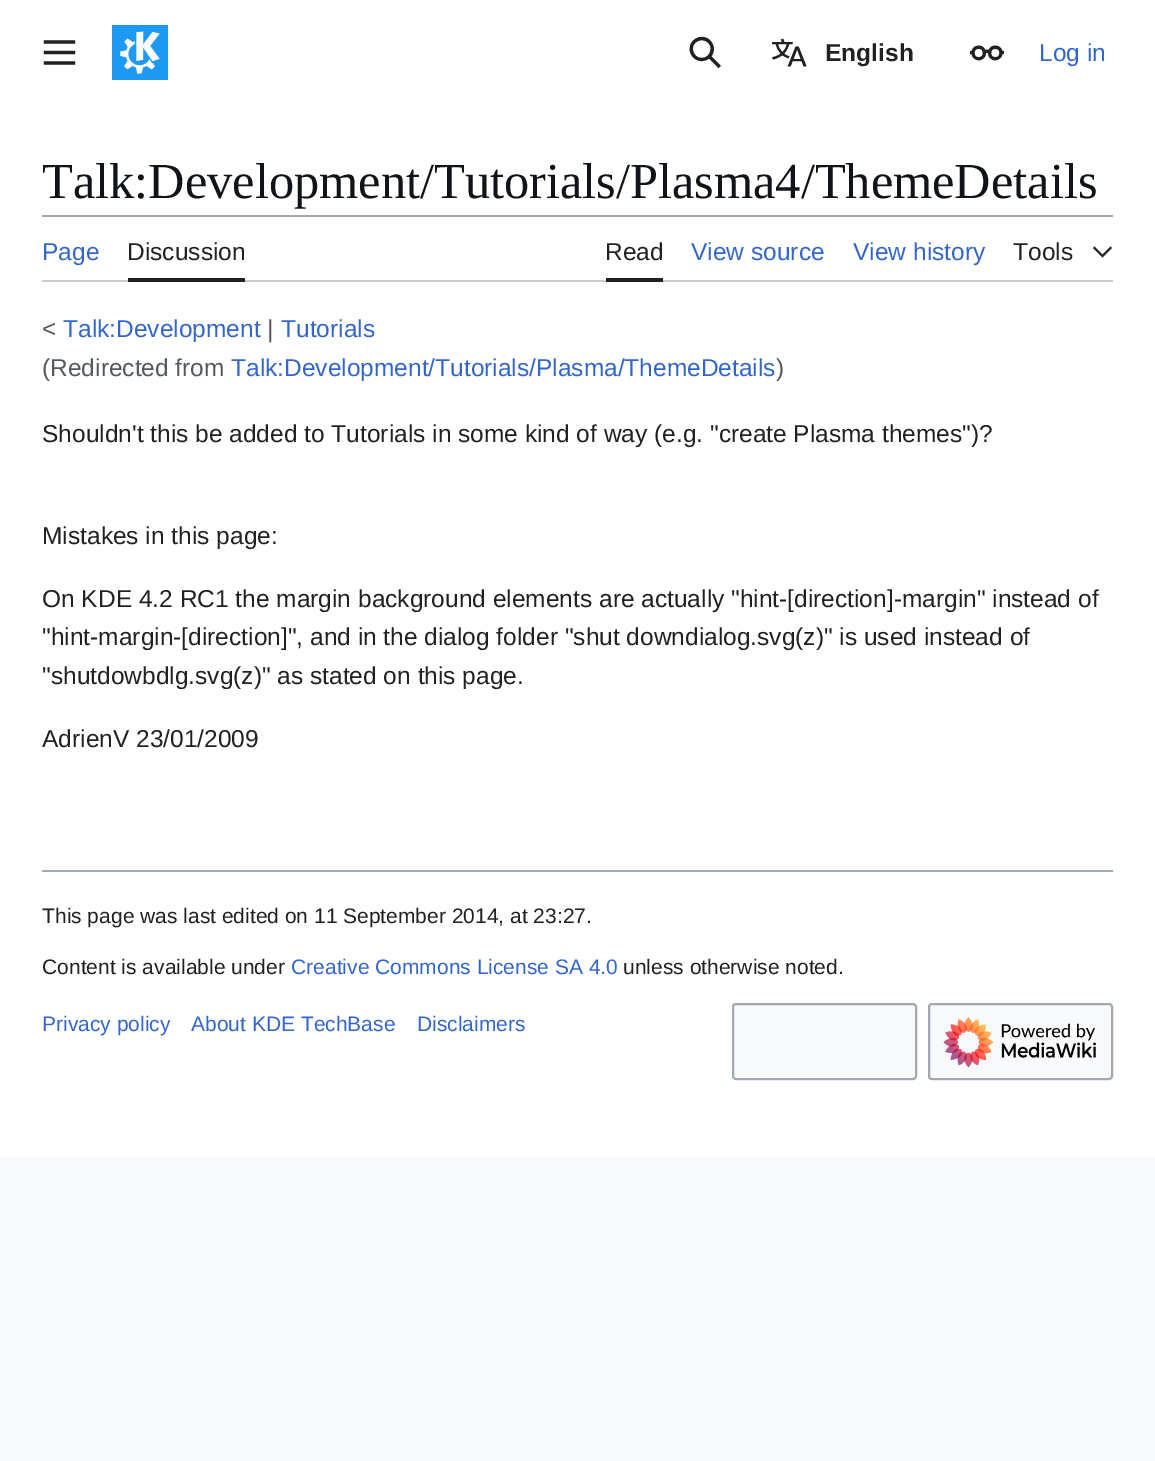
%!PS
<< /PageSize [1155 1461] >> setpagedevice
/roundrect { 5 dict begin { /r /h /w /y /x } { exch def } forall
  x r add y moveto x w add y 2 copy h add r arct x w add y h add x 1 index r arct
  x y h add x y r arct x y 2 copy exch w add exch r arct closepath end } def
/picture { 5 dict begin { /h /w /y /x /name } { exch def } forall
  gsave x y translate w h scale
  w h 8 [w 0 0 h 0 0] name (r) file false 3 colorimage grestore end } def
0 1461 translate 1 -1 scale
4 setmiterlimit
0.973 0.976 0.98 setrgbcolor
0 0 1155 1461 rectfill
1 setgray
0 0 1155 1157 rectfill
(img1.rgb) 43 40 33 25 picture
(img2.rgb) 112 25 56 55 picture
(img3.rgb) 689 36 32 33 picture
(img4.rgb) 772 38 35 29 picture
/LiberationSans-Bold [24.5 0 0 -24.5 0 0] selectfont
0.125 0.129 0.133 setrgbcolor
825 61 moveto (English) show
(img5.rgb) 970 45 35 16 picture
/LiberationSans-Regular [24.5 0 0 -24.5 0 0] selectfont
0.2 0.4 0.8 setrgbcolor
1039 61 moveto (Log in) show
/LiberationSerif-Regular [50.4 0 0 -50.4 0 0] selectfont
0.063 0.078 0.094 setrgbcolor
42 198 moveto (Talk:Development/Tutorials/Plasma4/ThemeDetails) show
0.635 0.663 0.694 setrgbcolor
42 215 1071 2 rectfill
0.784 0.8 0.82 setrgbcolor
42 280 1071 2 rectfill
/LiberationSans-Regular [24.5 0 0 -24.5 0 0] selectfont
0.2 0.4 0.8 setrgbcolor
42 260 moveto (Page) show
0.125 0.129 0.133 setrgbcolor
128 278 117 4 rectfill
127 260 moveto (Discussion) show
606 278 57 4 rectfill
605 260 moveto (Read) show
0.2 0.4 0.8 setrgbcolor
691 260 moveto (View source) show
853 260 moveto (View history) show
0.125 0.129 0.133 setrgbcolor
1013 260 moveto (Tools) show
newpath 1110.5 246.5 moveto 1102.5 254.5 lineto 1094.5 246.5 lineto 1093 248 lineto 1102.5 257.5 lineto 1112 248 lineto closepath fill
0.329 0.349 0.365 setrgbcolor
42 337 moveto (<) show
0.2 0.4 0.8 setrgbcolor
63 337 moveto (Talk:Development) show
0.329 0.349 0.365 setrgbcolor
267 337 moveto (|) show
0.2 0.4 0.8 setrgbcolor
281 337 moveto (Tutorials) show
0.329 0.349 0.365 setrgbcolor
42 376 moveto (\(Redirected from) show
0.2 0.4 0.8 setrgbcolor
231 376 moveto (Talk:Development/Tutorials/Plasma/ThemeDetails) show
0.329 0.349 0.365 setrgbcolor
776 376 moveto (\)) show
0.125 0.129 0.133 setrgbcolor
42 442 moveto (Shouldn't this be added to Tutorials in some kind of way \(e.g. "create Plasma themes"\)?) show
42 544 moveto (Mistakes in this page:) show
42 607 moveto (On KDE 4.2 RC1 the margin background elements are actually "hint-[direction]-margin" instead of) show
42 645 moveto ("hint-margin-[direction]", and in the dialog folder "shut downdialog.svg\(z\)" is used instead of) show
42 684 moveto ("shutdowbdlg.svg\(z\)" as stated on this page.) show
42 747 moveto (AdrienV 23/01/2009) show
0.635 0.663 0.694 setrgbcolor
42 870 1071 2 rectfill
/LiberationSans-Regular [21 0 0 -21 0 0] selectfont
0.125 0.129 0.133 setrgbcolor
42 923 moveto (This page was last edited on 11 September 2014, at 23:27.) show
42 974 moveto (Content is available under) show
0.2 0.4 0.8 setrgbcolor
291 974 moveto (Creative Commons License SA 4.0) show
0.125 0.129 0.133 setrgbcolor
623 974 moveto (unless otherwise noted.) show
0.2 0.4 0.8 setrgbcolor
42 1031 moveto (Privacy policy) show
191 1031 moveto (About KDE TechBase) show
417 1031 moveto (Disclaimers) show
0.973 0.976 0.98 setrgbcolor
733 1004 183 75 3 roundrect gsave fill grestore
0.635 0.663 0.694 setrgbcolor
2 setlinewidth
stroke
0.973 0.976 0.98 setrgbcolor
929 1004 183 75 3 roundrect gsave fill grestore
0.635 0.663 0.694 setrgbcolor
stroke
(img6.rgb) 943 1017 153 51 picture
showpage
